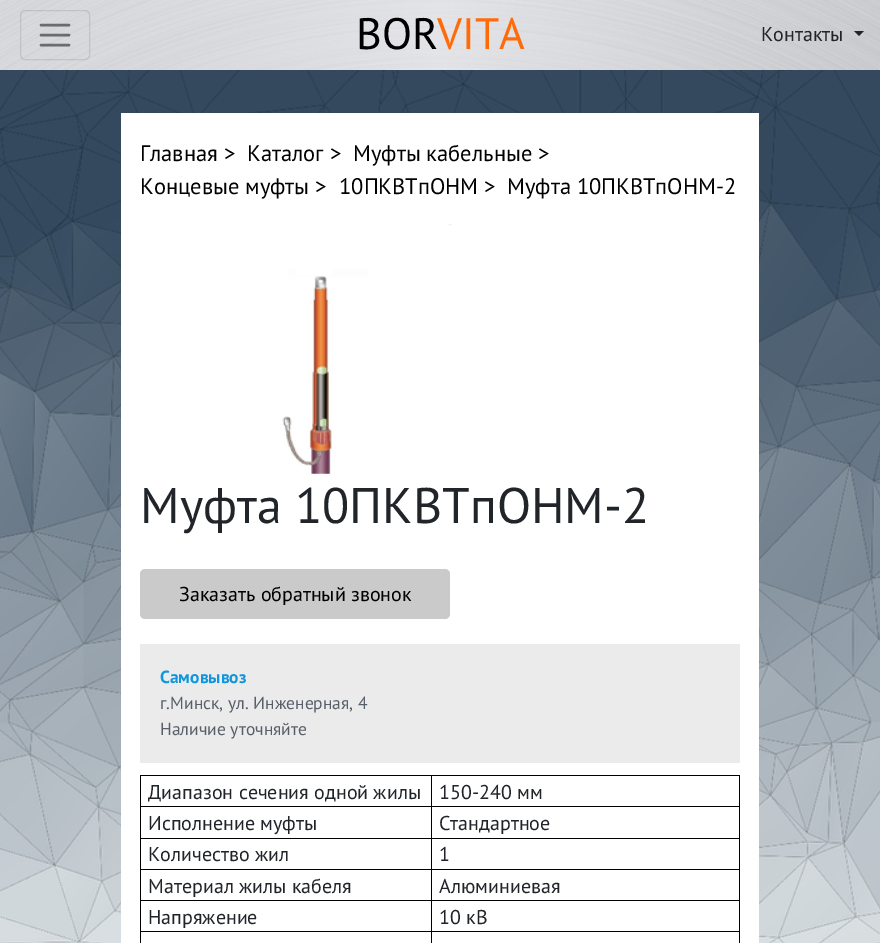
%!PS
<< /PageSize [880 943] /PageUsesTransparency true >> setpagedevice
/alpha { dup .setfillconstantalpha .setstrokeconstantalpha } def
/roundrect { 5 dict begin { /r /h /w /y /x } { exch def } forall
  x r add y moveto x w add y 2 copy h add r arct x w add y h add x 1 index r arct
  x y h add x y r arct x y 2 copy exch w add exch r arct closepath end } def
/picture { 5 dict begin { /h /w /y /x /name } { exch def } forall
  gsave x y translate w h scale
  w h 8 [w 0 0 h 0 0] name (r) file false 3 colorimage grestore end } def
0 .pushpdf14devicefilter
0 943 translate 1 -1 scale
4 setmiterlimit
1 setgray
0 0 880 943 rectfill
(img1.rgb) 0 70 880 873 picture
(img2.rgb) 0 0 880 70 picture
0.1 alpha
0 setgray
20.5 10.5 69 49 4.5 roundrect stroke
0.5 alpha
2.5 setlinewidth
1 setlinecap
newpath 41 25 moveto 69 25 lineto 41 35 moveto 69 35 lineto 41 45 moveto 69 45 lineto stroke
/PTSans-Regular [44 0 0 -44 0 0] selectfont
1 alpha
356 49 moveto (BOR) show
1 0.42 0.031 setrgbcolor
437 49 moveto (VITA) show
/PTSans-Regular [20 0 0 -20 0 0] selectfont
0.129 0.145 0.161 setrgbcolor
761 41 moveto (Контакты) show
newpath 854 31 moveto 864 31 lineto 859 36 lineto closepath fill
1 setgray
121 113 638 830 rectfill
/PTSans-Regular [22.5 0 0 -22.5 0 0] selectfont
0 setgray
140 161 moveto (Главная >) show
247 161 moveto (Каталог >) show
353 161 moveto (Муфты кабельные >) show
140 194 moveto (Концевые муфты >) show
339 194 moveto (10ПКВТпОНМ >) show
507 194 moveto (Муфта 10ПКВТпОНМ-2) show
(img3.rgb) 282 223 170 251 picture
/PTSans-Regular [50 0 0 -50 0 0] selectfont
0.129 0.145 0.161 setrgbcolor
140 523 moveto (Муфта 10ПКВТпОНМ-2) show
0.792 setgray
140 569 310 50 5 roundrect fill
/PTSans-Regular [20 0 0 -20 0 0] selectfont
0 setgray
179 601 moveto (Заказать обратный звонок) show
0.922 setgray
140 644 600 119 rectfill
/PTSans-Bold [17.5 0 0 -17.5 0 0] selectfont
0.063 0.588 0.863 setrgbcolor
160 683 moveto (Самовывоз) show
/PTSans-Regular [17.5 0 0 -17.5 0 0] selectfont
0.345 0.373 0.412 setrgbcolor
160 709 moveto (г.Минск, ул. Инженерная, 4) show
160 735 moveto (Наличие уточняйте) show
0 setgray
431 775 309 1 rectfill
431 806 309 1 rectfill
431 838 309 1 rectfill
431 869 309 1 rectfill
431 900 309 1 rectfill
431 931 309 1 rectfill
431 931 1 12 rectfill
140 931 293 1 rectfill
431 900 1 33 rectfill
140 900 293 1 rectfill
431 869 1 32 rectfill
140 869 293 1 rectfill
431 838 1 32 rectfill
140 838 293 1 rectfill
431 806 1 33 rectfill
140 806 293 1 rectfill
431 775 1 33 rectfill
140 775 293 1 rectfill
140 931 1 12 rectfill
140 900 1 33 rectfill
140 869 1 32 rectfill
140 838 1 32 rectfill
140 806 1 33 rectfill
140 775 1 33 rectfill
/PTSans-Regular [20 0 0 -20 0 0] selectfont
0.129 0.145 0.161 setrgbcolor
148 799 moveto (Диапазон сечения одной жилы) show
0 setgray
739 931 1 12 rectfill
739 900 1 33 rectfill
739 869 1 32 rectfill
739 838 1 32 rectfill
739 806 1 33 rectfill
739 775 1 33 rectfill
0.129 0.145 0.161 setrgbcolor
439 799 moveto (150-240 мм) show
148 830 moveto (Исполнение муфты) show
439 830 moveto (Стандартное) show
148 861 moveto (Количество жил) show
439 861 moveto (1) show
148 893 moveto (Материал жилы кабеля) show
439 893 moveto (Алюминиевая) show
148 924 moveto (Напряжение) show
439 924 moveto (10 кВ) show
.poppdf14devicefilter showpage
